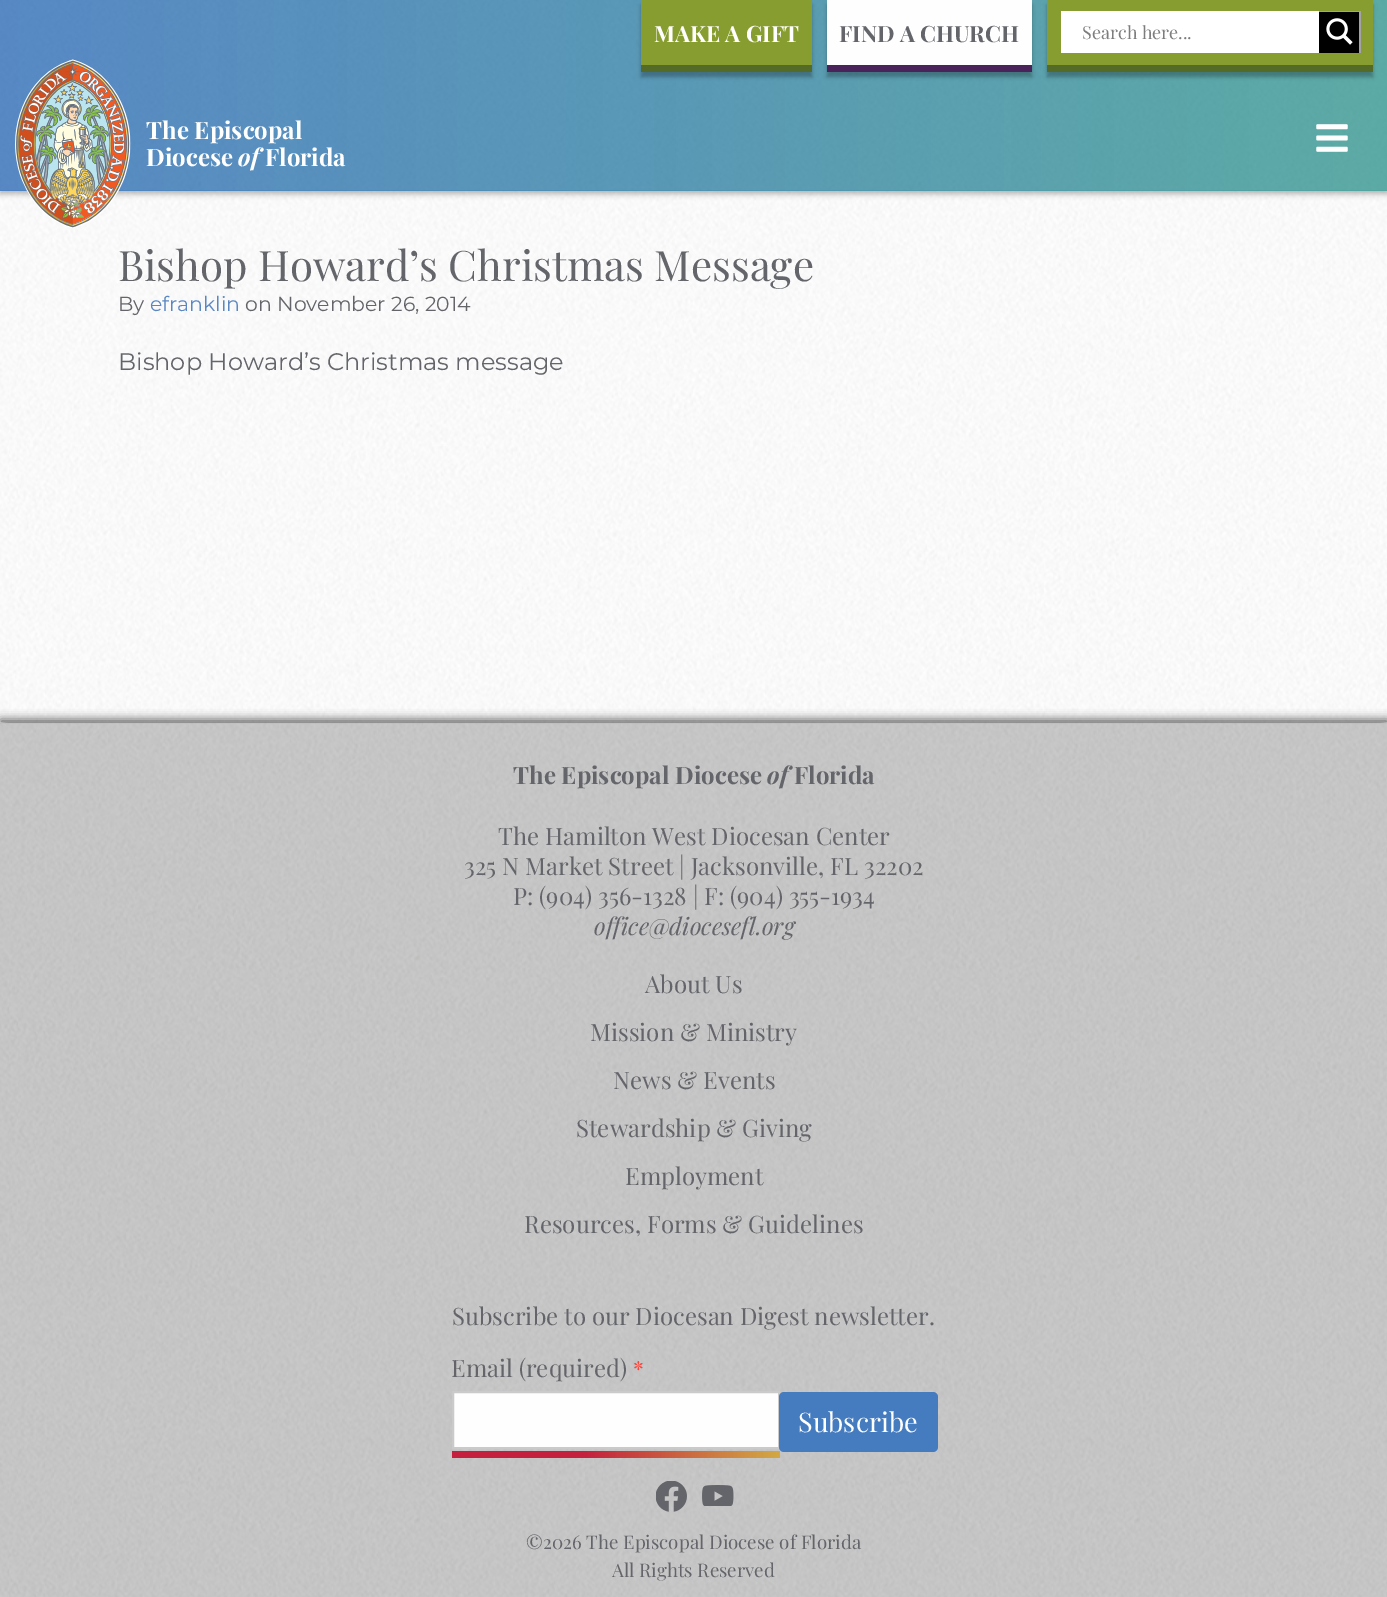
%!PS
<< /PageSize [1387 1597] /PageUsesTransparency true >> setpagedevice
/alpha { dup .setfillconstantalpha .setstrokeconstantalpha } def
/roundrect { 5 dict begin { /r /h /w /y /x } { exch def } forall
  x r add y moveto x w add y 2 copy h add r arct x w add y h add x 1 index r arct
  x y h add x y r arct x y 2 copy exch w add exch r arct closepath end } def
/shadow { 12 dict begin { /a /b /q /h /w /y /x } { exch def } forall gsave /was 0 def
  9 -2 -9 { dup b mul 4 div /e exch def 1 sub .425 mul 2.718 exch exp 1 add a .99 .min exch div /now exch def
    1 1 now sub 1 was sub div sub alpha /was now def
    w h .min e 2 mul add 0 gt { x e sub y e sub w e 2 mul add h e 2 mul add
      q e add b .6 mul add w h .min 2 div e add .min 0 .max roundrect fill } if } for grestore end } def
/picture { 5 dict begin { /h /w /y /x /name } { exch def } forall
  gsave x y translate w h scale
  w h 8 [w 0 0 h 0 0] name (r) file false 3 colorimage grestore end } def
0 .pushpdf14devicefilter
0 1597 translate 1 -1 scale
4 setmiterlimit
1 setgray
0 0 1387 1597 rectfill
(img5.rgb) 0 191 1387 532 picture
0.039 setgray
0 3 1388 191 0 3 0.3 shadow
gsave newpath 0 0 moveto 1387 0 lineto 1387 191 lineto 0 191 lineto closepath clip newpath
<< /ShadingType 2 /ColorSpace /DeviceRGB /Coords [0 95 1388 95] /Extend [true true] /Function << /FunctionType 2 /Domain [0 1] /C0 [0.271 0.486 0.749] /C1 [0.29 0.635 0.612] /N 1 >> >> shfill grestore
(img1.rgb) 0 0 1387 191 picture
641 5 171 72 0 2 0.3 shadow
0.533 0.616 0.184 setrgbcolor
641 0 171 65 rectfill
0.329 0.42 0.153 setrgbcolor
641 65 171 7 rectfill
/PlayfairDisplay-Bold [22.5 0 0 -22.5 0 0] selectfont
0.996 setgray
654 42 moveto (MAKE A GIFT) show
0.039 setgray
827 5 205 72 0 2 0.3 shadow
0.996 setgray
827 0 205 65 rectfill
0.286 0.137 0.353 setrgbcolor
827 65 205 7 rectfill
0.388 0.396 0.416 setrgbcolor
839 42 moveto (FIND A CHURCH) show
0.039 setgray
1047 5 326 72 0 2 0.3 shadow
0.533 0.616 0.184 setrgbcolor
1047 0 326 65 rectfill
0.329 0.42 0.153 setrgbcolor
1047 65 326 7 rectfill
1 setgray
1061 11 258 42 rectfill
/PlayfairDisplay-Regular [18 0 0 -18 0 0] selectfont
0.49 setgray
1082 39 moveto (Search here...) show
0 setgray
1319 12 40 41 rectfill
gsave
1319 11 42 42 rectclip
0.639 setgray
newpath 1170 -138 moveto 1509 -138 lineto 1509 201 lineto 1170 201 lineto closepath 1317 12 moveto 1359 12 lineto 1359 54 lineto 1317 54 lineto closepath eofill
grestore
(img2.rgb) 1326 18 27 27 picture
(img3.rgb) 15 59 116 169 picture
/PlayfairDisplay-Bold [24 0 0 -24 0 0] selectfont
0.996 setgray
146 139 moveto (The Episcopal) show
146 166 moveto (Diocese) show
/PlayfairDisplay-BoldItalic [24 0 0 -24 0 0] selectfont
238 166 moveto (of) show
/PlayfairDisplay-Bold [24 0 0 -24 0 0] selectfont
265 166 moveto (Florida) show
(img4.rgb) 1316 124 32 28 picture
/PlayfairDisplay-Regular [42 0 0 -42 0 0] selectfont
0.388 0.396 0.416 setrgbcolor
118 281 moveto (Bishop Howard’s Christmas Message) show
/Montserrat-Regular [20.4 0 0 -20.4 0 0] selectfont
118 311 moveto (By) show
0.353 0.529 0.761 setrgbcolor
150 311 moveto (efranklin) show
0.388 0.396 0.416 setrgbcolor
245 311 moveto (on November 26, 2014) show
/Montserrat-Regular [24 0 0 -24 0 0] selectfont
118 370 moveto (Bishop Howard’s Christmas message) show
0.039 setgray
0 719 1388 874 0 4.5 0.6 shadow
0.702 0.698 0.694 setrgbcolor
0 723 1387 874 rectfill
(img6.rgb) 0 722 1387 875 picture
/PlayfairDisplay-Bold [24 0 0 -24 0 0] selectfont
0.388 0.396 0.416 setrgbcolor
513 784 moveto (The Episcopal Diocese) show
/PlayfairDisplay-BoldItalic [24 0 0 -24 0 0] selectfont
767 784 moveto (of) show
/PlayfairDisplay-Bold [24 0 0 -24 0 0] selectfont
794 784 moveto (Florida) show
/PlayfairDisplay-Regular [24 0 0 -24 0 0] selectfont
498 845 moveto (The Hamilton West Diocesan Center) show
464 875 moveto (325 N Market Street | Jacksonville, FL 32202) show
513 905 moveto (P: \(904\) 356-1328 | F: \(904\) 355-1934) show
/PlayfairDisplay-Italic [24 0 0 -24 0 0] selectfont
594 935 moveto (office@diocesefl.org) show
/PlayfairDisplay-Regular [24 0 0 -24 0 0] selectfont
645 993 moveto (About Us) show
590 1041 moveto (Mission & Ministry) show
613 1089 moveto (News & Events) show
576 1137 moveto (Stewardship & Giving) show
625 1185 moveto (Employment) show
524 1233 moveto (Resources, Forms & Guidelines) show
452 1325 moveto (Subscribe to our Diocesan Digest newsletter.) show
451 1377 moveto (Email \(required\)) show
/PlayfairDisplay-Regular [22 0 0 -22 0 0] selectfont
1 0.255 0.212 setrgbcolor
633 1377 moveto (*) show
0.996 setgray
newpath 453 1392 moveto 779 1392 lineto 779 1448 lineto 453 1448 lineto closepath gsave fill grestore
0.792 setgray
2 setlinewidth
stroke
gsave newpath 452 1451 moveto 780 1451 lineto 780 1458 lineto 452 1458 lineto closepath clip newpath
<< /ShadingType 2 /ColorSpace /DeviceRGB /Coords [452 1454 780 1454] /Extend [true true] /Function << /FunctionType 3 /Domain [0 1] /Functions [<< /FunctionType 2 /Domain [0 1] /C0 [0.773 0.125 0.243] /C1 [0.773 0.125 0.243] /N 1 >> << /FunctionType 2 /Domain [0 1] /C0 [0.773 0.125 0.243] /C1 [0.824 0.663 0.267] /N 1 >>] /Bounds [0.4] /Encode [0 1 0 1] >> >> shfill grestore
0.271 0.486 0.749 setrgbcolor
779 1392 159 60 5 roundrect fill
/PlayfairDisplay-Regular [27 0 0 -27 0 0] selectfont
0.996 setgray
798 1432 moveto (Subscribe) show
(img7.rgb) 656 1481 31 31 picture
(img8.rgb) 702 1485 32 21 picture
/PlayfairDisplay-Regular [18.75 0 0 -18.75 0 0] selectfont
0.388 0.396 0.416 setrgbcolor
526 1549 moveto (©2026 The Episcopal Diocese of Florida) show
612 1577 moveto (All Rights Reserved) show
.poppdf14devicefilter showpage
